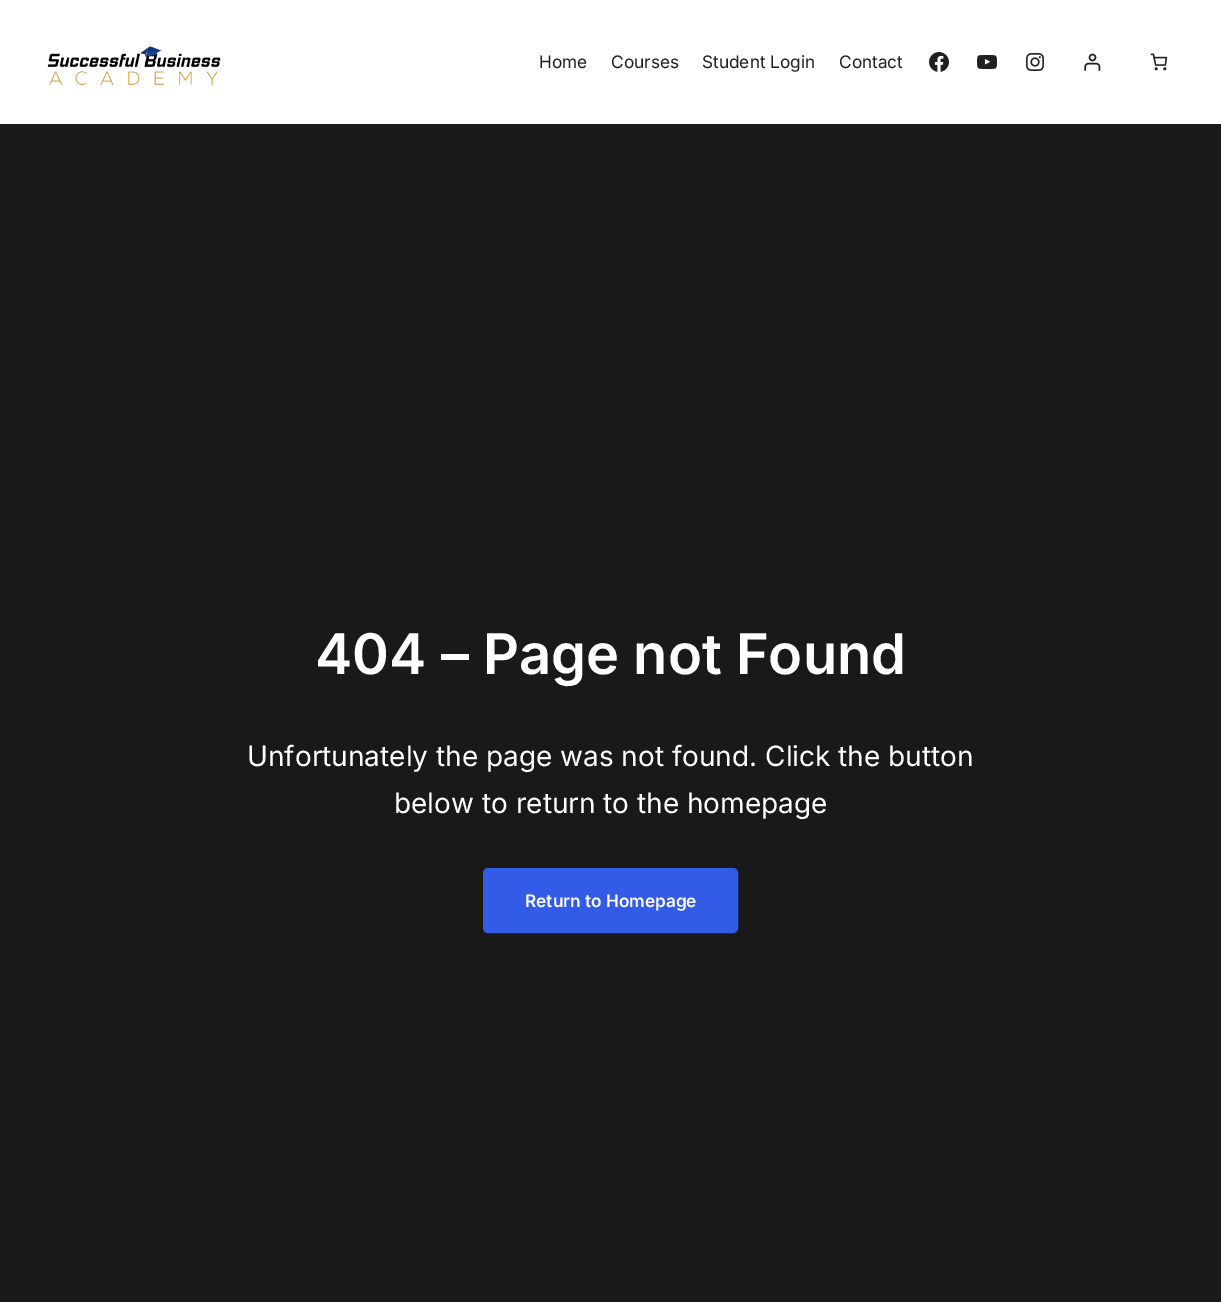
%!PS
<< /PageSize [1221 1302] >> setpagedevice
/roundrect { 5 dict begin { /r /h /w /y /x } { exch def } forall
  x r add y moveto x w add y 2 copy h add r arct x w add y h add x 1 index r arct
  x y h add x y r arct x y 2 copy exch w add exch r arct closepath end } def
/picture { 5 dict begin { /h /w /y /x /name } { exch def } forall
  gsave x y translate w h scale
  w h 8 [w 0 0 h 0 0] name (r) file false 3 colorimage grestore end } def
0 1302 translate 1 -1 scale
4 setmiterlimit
1 setgray
0 0 1221 1302 rectfill
(img1.rgb) 47 46 174 40 picture
/Inter-Regular [17.25 0 0 -17.25 0 0] selectfont
0.125 setgray
539 68 moveto (Home) show
611 68 moveto (Courses) show
702 68 moveto (Student Login) show
839 68 moveto (Contact) show
(img2.rgb) 929 52 20 20 picture
(img3.rgb) 977 55 20 14 picture
(img4.rgb) 1026 53 18 18 picture
(img5.rgb) 1084 53 17 18 picture
(img6.rgb) 1150 53 18 18 picture
0.102 0.098 0.098 setrgbcolor
0 124 1221 1178 rectfill
/Inter-SemiBold [56 0 0 -56 0 0] selectfont
1 setgray
315 674 moveto (404 – Page not Found) show
/Inter-Regular [28 0 0 -28 0 0] selectfont
247 766 moveto (Unfortunately the page was not found. Click the button) show
394 813 moveto (below to return to the homepage) show
0.196 0.361 0.91 setrgbcolor
484 869 253 63 4 roundrect gsave fill grestore
2 setlinewidth
stroke
/Inter-SemiBold [17.25 0 0 -17.25 0 0] selectfont
1 setgray
525 907 moveto (Return to Homepage) show
showpage
